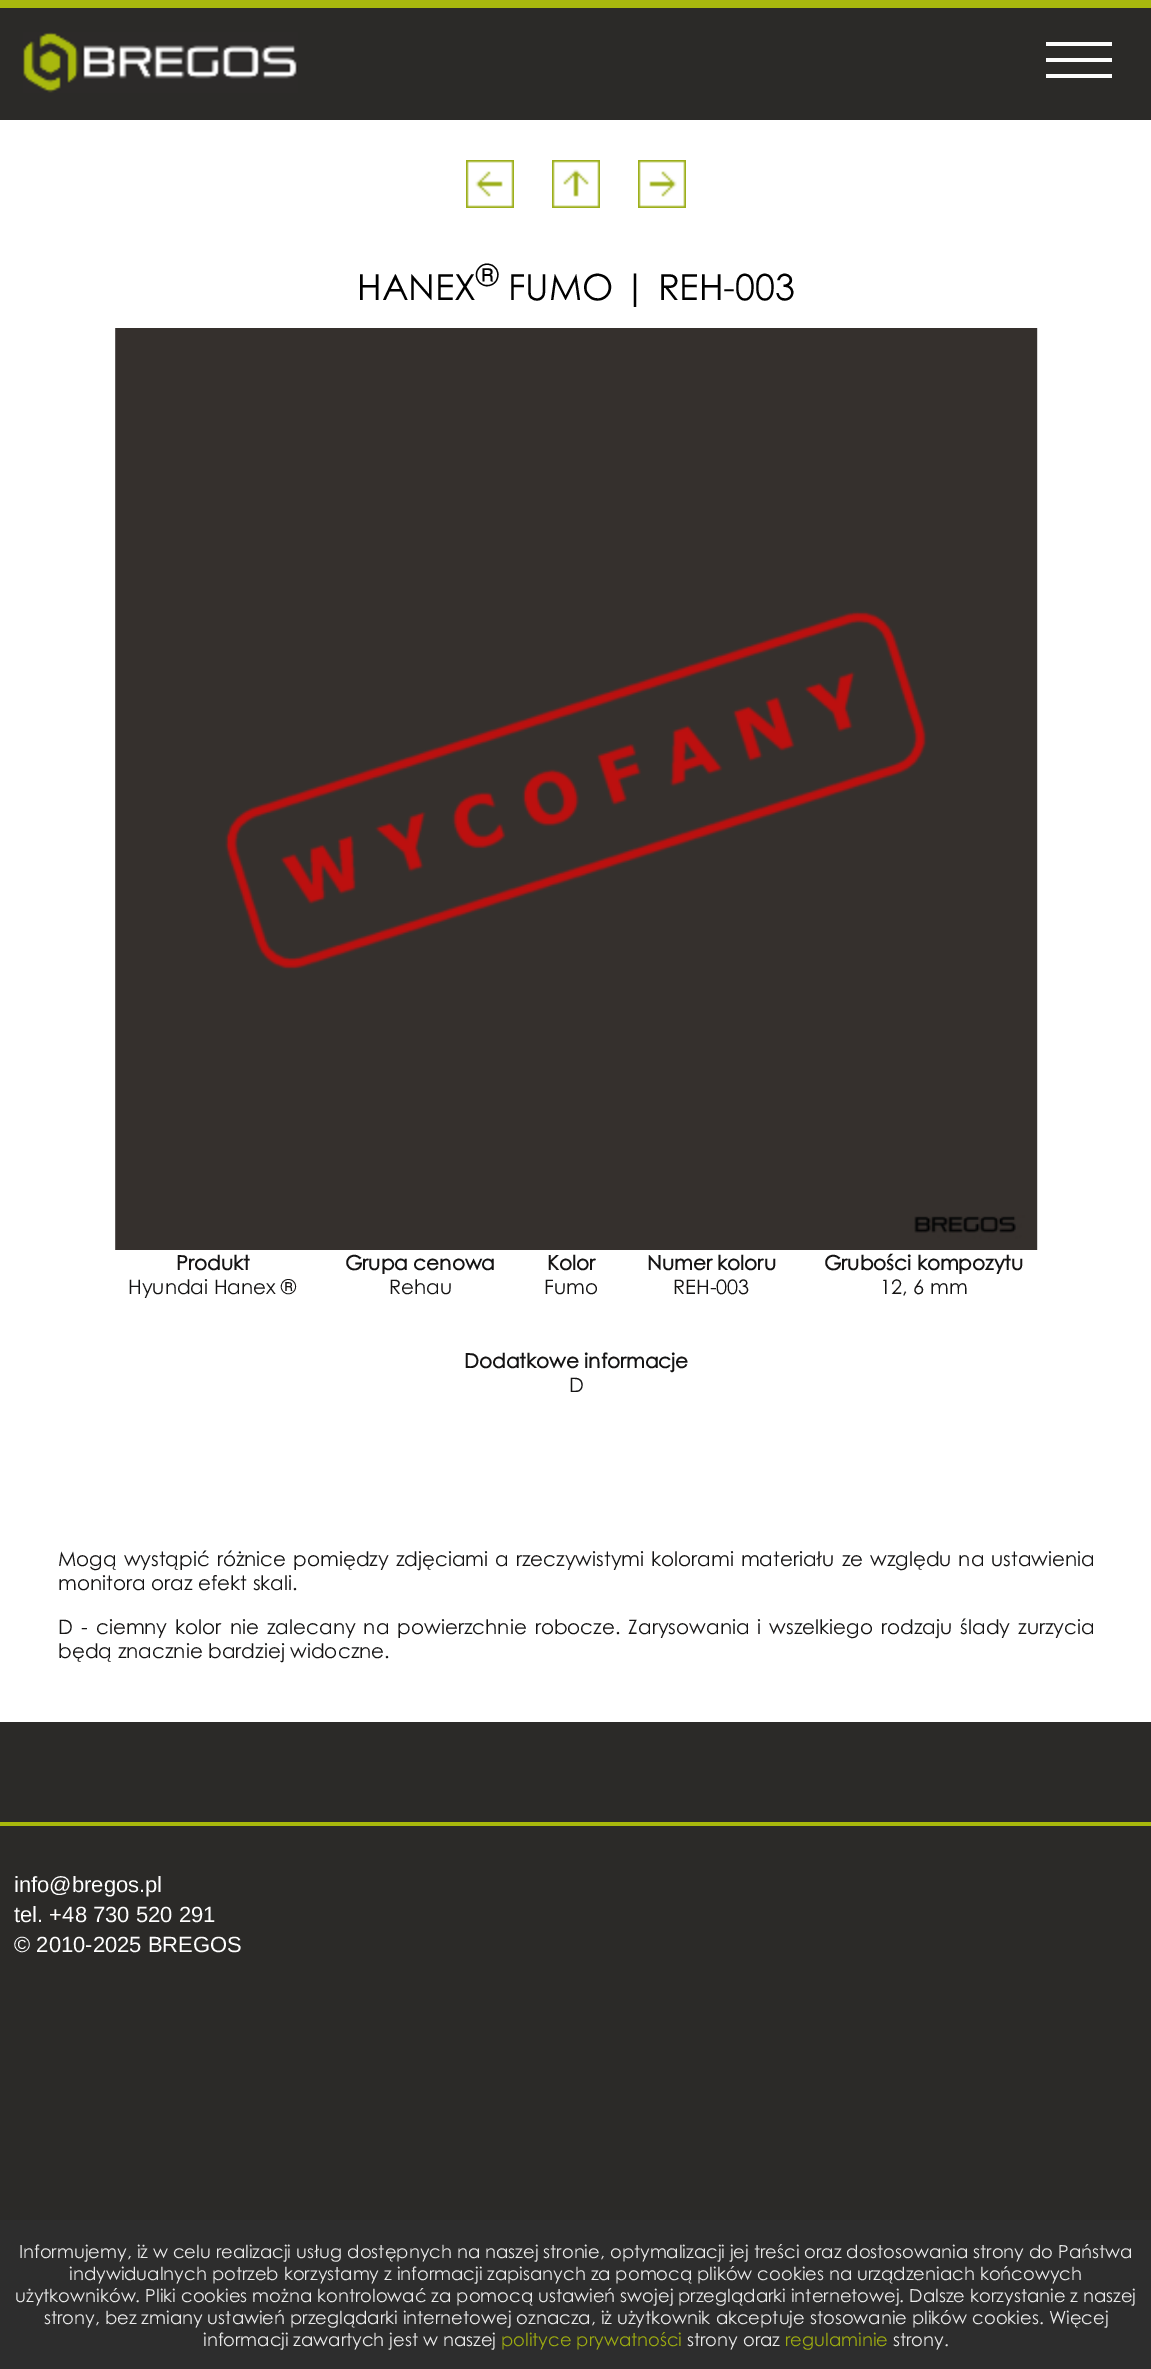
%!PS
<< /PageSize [1151 2369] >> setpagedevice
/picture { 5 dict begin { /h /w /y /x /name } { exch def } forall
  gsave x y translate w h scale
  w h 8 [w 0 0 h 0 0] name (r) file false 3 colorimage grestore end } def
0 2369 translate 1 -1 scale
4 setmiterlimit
0.169 0.165 0.157 setrgbcolor
0 0 1151 2369 rectfill
0.659 0.722 0.055 setrgbcolor
0 0 1151 8 rectfill
(img1.rgb) 23 32 275 61 picture
0.988 setgray
1046 42 66 4 rectfill
1046 58 66 4 rectfill
1046 74 66 4 rectfill
1 setgray
0 120 1151 1602 rectfill
(img2.rgb) 466 160 48 48 picture
(img3.rgb) 552 160 48 48 picture
(img4.rgb) 638 160 48 48 picture
/CenturyGothic-Regular [36 0 0 -36 0 0] selectfont
0 setgray
357 300 moveto (HANEX) show
/CenturyGothic-Regular [30 0 0 -30 0 0] selectfont
476 286 moveto (®) show
/CenturyGothic-Regular [36 0 0 -36 0 0] selectfont
508 300 moveto (FUMO | REH-003) show
(img5.rgb) 115 328 923 922 picture
(img6.rgb) 225 611 702 359 picture
/CenturyGothic-Bold [20 0 0 -20 0 0] selectfont
0.082 0.078 0.078 setrgbcolor
176 1270 moveto (Produkt) show
/CenturyGothic-Regular [20 0 0 -20 0 0] selectfont
128 1294 moveto (Hyundai Hanex ®) show
/CenturyGothic-Bold [20 0 0 -20 0 0] selectfont
345 1270 moveto (Grupa cenowa) show
/CenturyGothic-Regular [20 0 0 -20 0 0] selectfont
389 1294 moveto (Rehau) show
/CenturyGothic-Bold [20 0 0 -20 0 0] selectfont
547 1270 moveto (Kolor) show
/CenturyGothic-Regular [20 0 0 -20 0 0] selectfont
544 1294 moveto (Fumo) show
/CenturyGothic-Bold [20 0 0 -20 0 0] selectfont
647 1270 moveto (Numer koloru) show
/CenturyGothic-Regular [20 0 0 -20 0 0] selectfont
673 1294 moveto (REH-003) show
/CenturyGothic-Bold [20 0 0 -20 0 0] selectfont
824 1270 moveto (Grubości kompozytu) show
/CenturyGothic-Regular [20 0 0 -20 0 0] selectfont
880 1294 moveto (12, 6 mm) show
/CenturyGothic-Bold [20 0 0 -20 0 0] selectfont
464 1368 moveto (Dodatkowe informacje) show
/CenturyGothic-Regular [20 0 0 -20 0 0] selectfont
569 1392 moveto (D) show
58 1566 moveto 1.4 0 32 (Mogą wystąpić różnice pomiędzy zdjęciami a rzeczywistymi kolorami materiału ze względu na ustawienia) widthshow
58 1590 moveto (monitora oraz efekt skali.) show
58 1634 moveto 2.5 0 32 (D - ciemny kolor nie zalecany na powierzchnie robocze. Zarysowania i wszelkiego rodzaju ślady zurzycia) widthshow
58 1658 moveto (będą znacznie bardziej widoczne.) show
0.659 0.722 0.047 setrgbcolor
0 1822 1151 4 rectfill
/LiberationSans-Regular [22 0 0 -22 0 0] selectfont
1 setgray
14 1892 moveto (info@bregos.pl) show
14 1922 moveto (tel. +48 730 520 291) show
14 1952 moveto (© 2010-2025 BREGOS) show
0.176 setgray
0 2220 1151 149 rectfill
/CenturyGothic-Regular [18 0 0 -18 0 0] selectfont
0.918 setgray
19 2258 moveto (Informujemy, iż w celu realizacji usług dostępnych na naszej stronie, optymalizacji jej treści oraz dostosowania strony do Państwa) show
69 2280 moveto (indywidualnych potrzeb korzystamy z informacji zapisanych za pomocą plików cookies na urządzeniach końcowych) show
15 2302 moveto (użytkowników. Pliki cookies można kontrolować za pomocą ustawień swojej przeglądarki internetowej. Dalsze korzystanie z naszej) show
44 2324 moveto (strony, bez zmiany ustawień przeglądarki internetowej oznacza, iż użytkownik akceptuje stosowanie plików cookies. Więcej) show
203 2346 moveto (informacji zawartych jest w naszej) show
0.612 0.667 0.067 setrgbcolor
501 2346 moveto (polityce prywatności) show
0.918 setgray
687 2346 moveto (strony oraz) show
0.612 0.667 0.067 setrgbcolor
785 2346 moveto (regulaminie) show
0.918 setgray
893 2346 moveto (strony.) show
showpage
